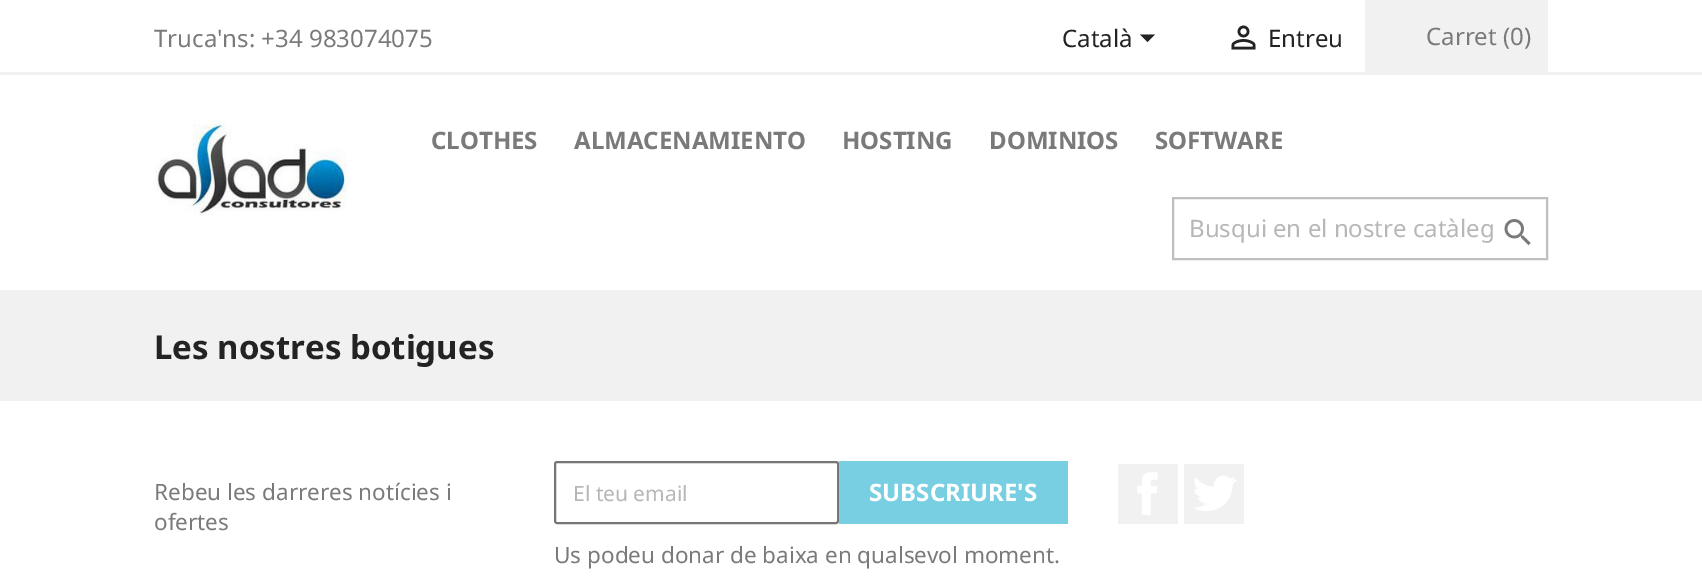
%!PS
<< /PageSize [1702 582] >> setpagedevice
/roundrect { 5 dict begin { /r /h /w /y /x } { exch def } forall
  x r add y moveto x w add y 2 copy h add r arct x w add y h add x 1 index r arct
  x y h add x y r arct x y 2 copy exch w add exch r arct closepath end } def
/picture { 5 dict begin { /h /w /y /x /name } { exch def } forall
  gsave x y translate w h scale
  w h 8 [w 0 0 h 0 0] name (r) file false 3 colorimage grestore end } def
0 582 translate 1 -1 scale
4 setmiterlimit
1 setgray
0 0 1702 582 rectfill
0.945 setgray
0 72 1702 3 rectfill
/NotoSans-Regular [24 0 0 -24 0 0] selectfont
0.478 setgray
154 47 moveto (Truca'ns: +34 983074075) show
0.137 setgray
1062 47 moveto (Català) show
newpath 1140 34.5 moveto 1155 34.5 lineto 1147.5 42 lineto closepath fill
(img1.rgb) 1231 25 25 25 picture
1268 47 moveto (Entreu) show
0.945 setgray
1365 0 183 72 rectfill
0.478 setgray
1426 45 moveto (Carret \(0\)) show
(img2.rgb) 155 120 193 96 picture
/NotoSans-Bold [24 0 0 -24 0 0] selectfont
431 149 moveto (CLOTHES) show
574 149 moveto (ALMACENAMIENTO) show
842 149 moveto (HOSTING) show
989 149 moveto (DOMINIOS) show
1155 149 moveto (SOFTWARE) show
0.749 setgray
2 setlinewidth
1173 198 374 61 rectstroke
/NotoSans-Regular [24 0 0 -24 0 0] selectfont
0.718 setgray
1189 237 moveto (Busqui en el nostre catàleg) show
(img3.rgb) 1504 219 27 27 picture
0.945 setgray
0 290 1702 111 rectfill
/NotoSans-Bold [33 0 0 -33 0 0] selectfont
0.137 setgray
154 359 moveto (Les nostres botigues) show
/NotoSans-Regular [22.5 0 0 -22.5 0 0] selectfont
0.478 setgray
154 500 moveto (Rebeu les darreres notícies i) show
154 530 moveto (ofertes) show
0.463 setgray
555 462 283 61 2 roundrect stroke
/NotoSans-Regular [21 0 0 -21 0 0] selectfont
0.718 setgray
573 501 moveto (El teu email) show
0.471 0.812 0.886 setrgbcolor
839 461 229 63 rectfill
/NotoSans-Bold [24 0 0 -24 0 0] selectfont
1 setgray
869 501 moveto (SUBSCRIURE'S) show
/NotoSans-Regular [22.5 0 0 -22.5 0 0] selectfont
0.478 setgray
554 563 moveto (Us podeu donar de baixa en qualsevol moment.) show
0.945 setgray
1118 464 60 60 rectfill
(img4.rgb) 1137 472 21 43 picture
1184 464 60 60 rectfill
(img5.rgb) 1194 475 43 36 picture
showpage
